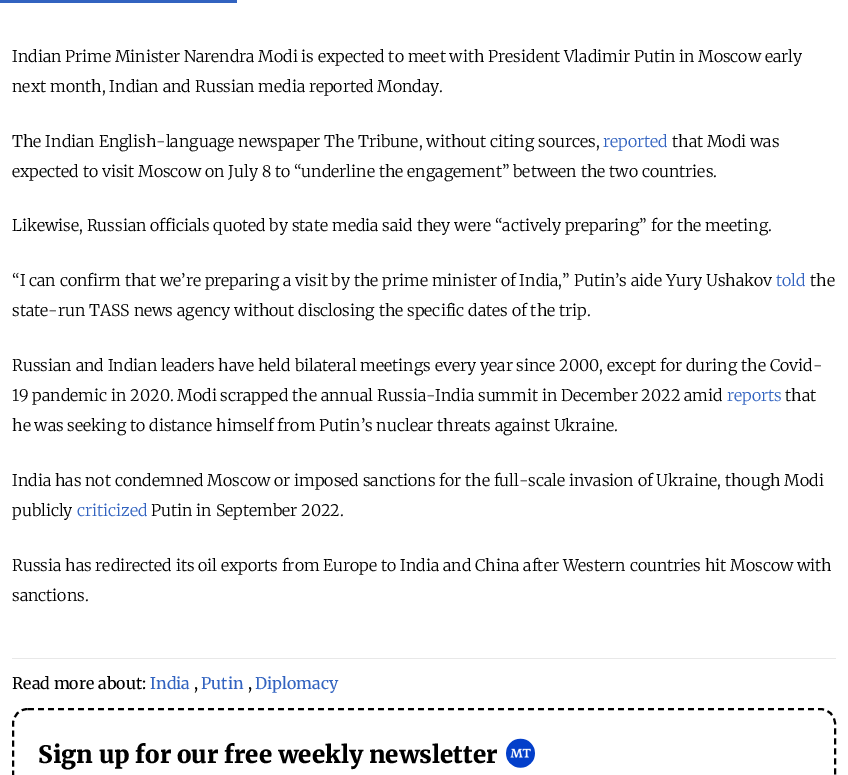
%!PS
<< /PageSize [848 775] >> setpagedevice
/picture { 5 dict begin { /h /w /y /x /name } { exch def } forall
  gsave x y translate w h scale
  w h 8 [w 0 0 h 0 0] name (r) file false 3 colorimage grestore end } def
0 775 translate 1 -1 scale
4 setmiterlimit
1 setgray
0 0 848 775 rectfill
0.196 0.388 0.753 setrgbcolor
0 0 237 3 rectfill
/Merriweather-Light [16 0 0 -16 0 0] selectfont
0 setgray
12 62 moveto (Indian Prime Minister Narendra Modi is expected to meet with President Vladimir Putin in Moscow early) show
12 92 moveto (next month, Indian and Russian media reported Monday.) show
12 147 moveto (The Indian English-language newspaper The Tribune, without citing sources,) show
0.196 0.388 0.753 setrgbcolor
603 147 moveto (reported) show
0 setgray
672 147 moveto (that Modi was) show
12 177 moveto (expected to visit Moscow on July 8 to “underline the engagement” between the two countries.) show
12 231 moveto (Likewise, Russian officials quoted by state media said they were “actively preparing” for the meeting.) show
12 286 moveto (“I can confirm that we’re preparing a visit by the prime minister of India,” Putin’s aide Yury Ushakov) show
0.196 0.388 0.753 setrgbcolor
776 286 moveto (told) show
0 setgray
810 286 moveto (the) show
12 316 moveto (state-run TASS news agency without disclosing the specific dates of the trip.) show
12 371 moveto (Russian and Indian leaders have held bilateral meetings every year since 2000, except for during the Covid-) show
12 401 moveto (19 pandemic in 2020. Modi scrapped the annual Russia-India summit in December 2022 amid) show
0.196 0.388 0.753 setrgbcolor
727 401 moveto (reports) show
0 setgray
785 401 moveto (that) show
12 431 moveto (he was seeking to distance himself from Putin’s nuclear threats against Ukraine.) show
12 486 moveto (India has not condemned Moscow or imposed sanctions for the full-scale invasion of Ukraine, though Modi) show
12 516 moveto (publicly) show
0.196 0.388 0.753 setrgbcolor
77 516 moveto (criticized) show
0 setgray
151 516 moveto (Putin in September 2022.) show
12 571 moveto (Russia has redirected its oil exports from Europe to India and China after Western countries hit Moscow with) show
12 601 moveto (sanctions.) show
0.91 setgray
12 658 824 1 rectfill
/Merriweather-Regular [16 0 0 -16 0 0] selectfont
0 setgray
12 689 moveto (Read more about:) show
0.196 0.388 0.753 setrgbcolor
150 689 moveto (India) show
0 setgray
194 689 moveto (,) show
0.196 0.388 0.753 setrgbcolor
201 689 moveto (Putin) show
0 setgray
248 689 moveto (,) show
0.196 0.388 0.753 setrgbcolor
255 689 moveto (Diplomacy) show
0 setgray
2 setlinewidth
[6 4] 0 setdash
newpath 28 709 moveto 820 709 lineto 828.5 709 835 715.5 835 724 curveto 835 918 lineto 835 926.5 828.5 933 820 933 curveto 28 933 lineto 19.5 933 13 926.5 13 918 curveto 13 724 lineto 13 715.5 19.5 709 28 709 curveto closepath stroke
/Merriweather-Black [24 0 0 -24 0 0] selectfont
38 763 moveto (Sign up for our free weekly newsletter) show
(img1.rgb) 506 738 29 30 picture
showpage
